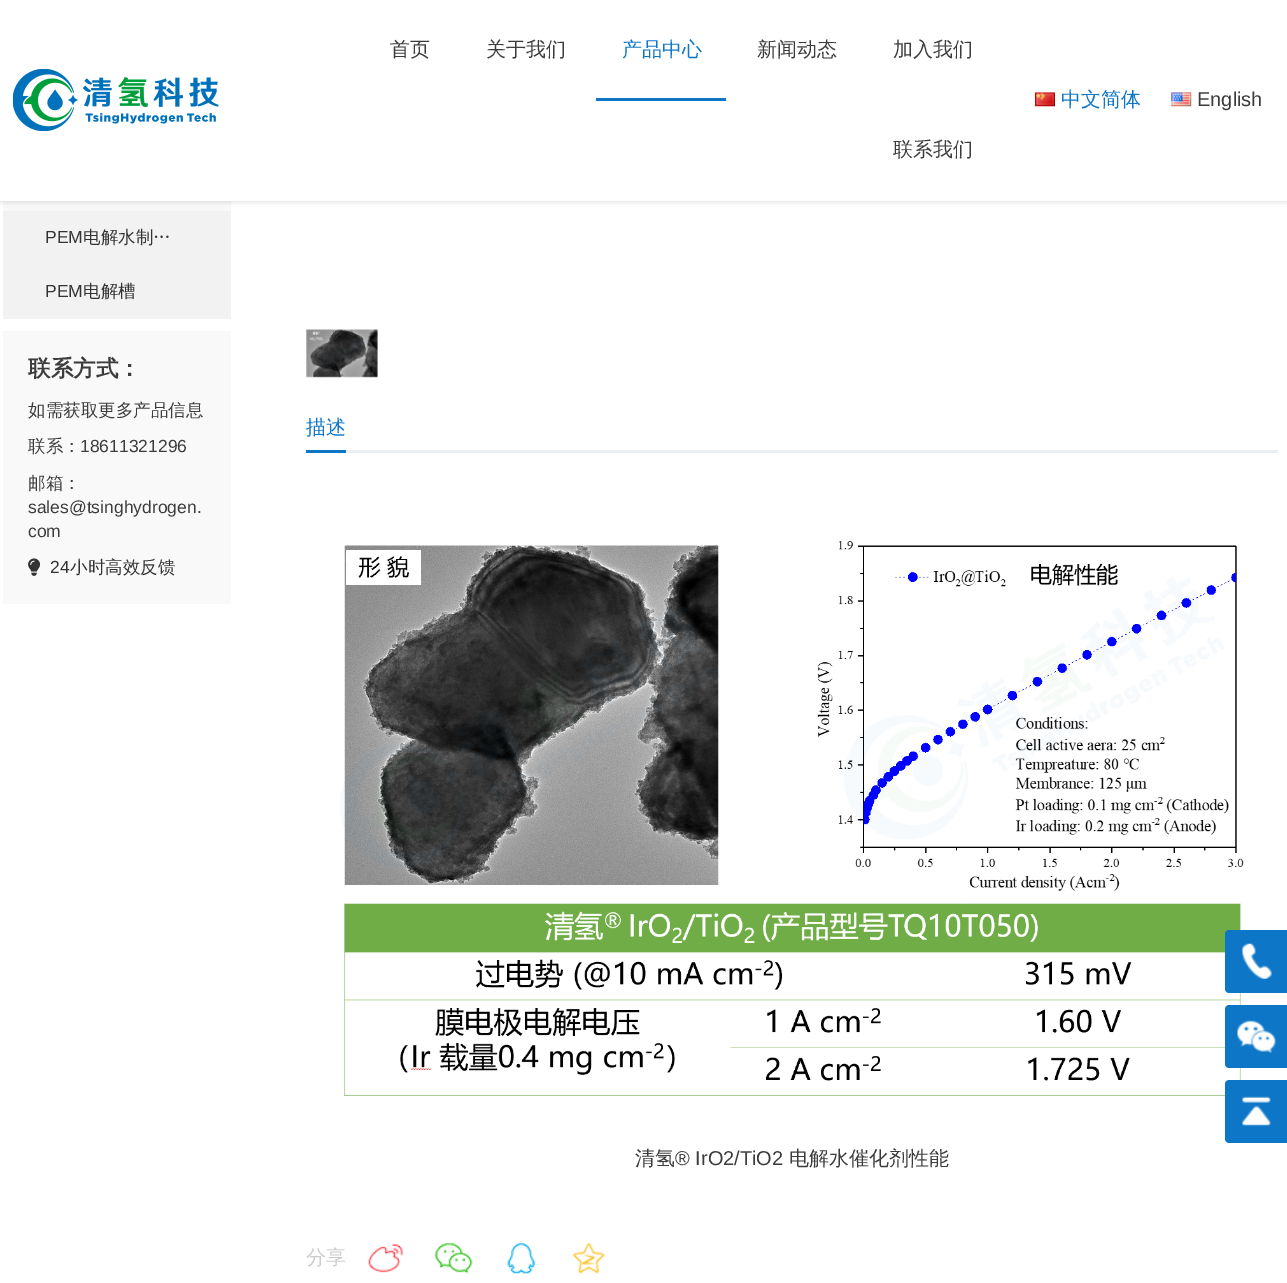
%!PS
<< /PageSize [1287 1283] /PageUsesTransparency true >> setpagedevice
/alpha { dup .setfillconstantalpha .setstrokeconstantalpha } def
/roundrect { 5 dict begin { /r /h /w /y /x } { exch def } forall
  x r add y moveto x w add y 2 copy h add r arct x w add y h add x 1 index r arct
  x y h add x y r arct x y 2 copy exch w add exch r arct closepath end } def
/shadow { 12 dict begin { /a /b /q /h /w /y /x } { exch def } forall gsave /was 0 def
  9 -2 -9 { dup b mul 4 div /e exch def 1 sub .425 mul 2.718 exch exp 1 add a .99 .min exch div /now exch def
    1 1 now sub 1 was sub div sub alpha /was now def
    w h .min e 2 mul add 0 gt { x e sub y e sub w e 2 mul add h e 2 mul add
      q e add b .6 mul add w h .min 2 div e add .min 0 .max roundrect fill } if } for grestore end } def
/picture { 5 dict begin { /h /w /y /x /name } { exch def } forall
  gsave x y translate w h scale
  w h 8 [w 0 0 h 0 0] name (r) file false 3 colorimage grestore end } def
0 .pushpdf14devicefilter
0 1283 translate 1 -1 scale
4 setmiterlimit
1 setgray
0 0 1287 1283 rectfill
0.973 setgray
3 201 228 10 rectfill
0.071 setgray
0 1 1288 202 0 2 0.1 shadow
1 setgray
0 0 1287 201 rectfill
(img1.rgb) 13 69 206 62 picture
/WenQuanYiZenHei-Medium [20 0 0 -20 0 0] selectfont
0.235 setgray
390 56 moveto (首页) show
486 56 moveto (关于我们) show
0.051 0.463 0.776 setrgbcolor
622 56 moveto (产品中心) show
596 98 130 3 rectfill
0.235 setgray
757 56 moveto (新闻动态) show
893 56 moveto (加入我们) show
893 156 moveto (联系我们) show
(img2.rgb) 1035 92 20 15 picture
0.051 0.463 0.776 setrgbcolor
1061 106 moveto (中文简体) show
(img3.rgb) 1171 92 21 15 picture
/LiberationSans-Regular [20 0 0 -20 0 0] selectfont
0.235 setgray
1197 106 moveto (English) show
0.949 setgray
3 211 228 108 rectfill
/LiberationSans-Regular [17.5 0 0 -17.5 0 0] selectfont
0.2 setgray
45 243 moveto (PEM) show
/WenQuanYiZenHei-Medium [17.5 0 0 -17.5 0 0] selectfont
83 243 moveto (电解水制…) show
/LiberationSans-Regular [17.5 0 0 -17.5 0 0] selectfont
45 297 moveto (PEM) show
/WenQuanYiZenHei-Medium [17.5 0 0 -17.5 0 0] selectfont
83 297 moveto (电解槽) show
0.976 setgray
3 331 228 273 rectfill
/WenQuanYiZenHei-Bold [22.5 0 0 -22.5 0 0] selectfont
0.235 setgray
28 376 moveto (联系方式：) show
/WenQuanYiZenHei-Medium [17.5 0 0 -17.5 0 0] selectfont
28 416 moveto (如需获取更多产品信息) show
28 452 moveto (联系：) show
/LiberationSans-Regular [17.5 0 0 -17.5 0 0] selectfont
80 452 moveto (18611321296) show
/WenQuanYiZenHei-Medium [17.5 0 0 -17.5 0 0] selectfont
28 489 moveto (邮箱：) show
/LiberationSans-Regular [17.5 0 0 -17.5 0 0] selectfont
28 513 moveto (sales@tsinghydrogen.) show
28 537 moveto (com) show
(img4.rgb) 28 558 13 18 picture
0.2 setgray
50 573 moveto (24) show
/WenQuanYiZenHei-Medium [17.5 0 0 -17.5 0 0] selectfont
70 573 moveto (小时高效反馈) show
(img5.rgb) 306 329 72 49 picture
/WenQuanYiZenHei-Medium [20 0 0 -20 0 0] selectfont
0.051 0.463 0.776 setrgbcolor
306 434 moveto (描述) show
306 450 40 3 rectfill
0.922 0.933 0.961 setrgbcolor
346 450 932 3 rectfill
(img6.rgb) 340 541 904 555 picture
0.235 setgray
635 1165 moveto (清氢) show
/LiberationSans-Regular [20 0 0 -20 0 0] selectfont
675 1165 moveto (® IrO2/TiO2) show
/WenQuanYiZenHei-Medium [20 0 0 -20 0 0] selectfont
789 1165 moveto (电解水催化剂性能) show
0.8 setgray
306 1264 moveto (分享) show
(img7.rgb) 368 1243 35 30 picture
(img8.rgb) 434 1243 39 31 picture
(img9.rgb) 507 1243 29 31 picture
(img10.rgb) 572 1243 34 31 picture
0.051 0.463 0.776 setrgbcolor
newpath 1229 930 moveto 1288 930 lineto 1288 993 lineto 1229 993 lineto 1227 993 1225 991 1225 989 curveto 1225 934 lineto 1225 932 1227 930 1229 930 curveto closepath fill
(img11.rgb) 1242 943 30 36 picture
newpath 1229 1005 moveto 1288 1005 lineto 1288 1068 lineto 1229 1068 lineto 1227 1068 1225 1066 1225 1064 curveto 1225 1009 lineto 1225 1007 1227 1005 1229 1005 curveto closepath fill
(img12.rgb) 1237 1020 39 33 picture
newpath 1229 1080 moveto 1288 1080 lineto 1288 1143 lineto 1229 1143 lineto 1227 1143 1225 1141 1225 1139 curveto 1225 1084 lineto 1225 1082 1227 1080 1229 1080 curveto closepath fill
(img13.rgb) 1242 1096 29 30 picture
.poppdf14devicefilter showpage
